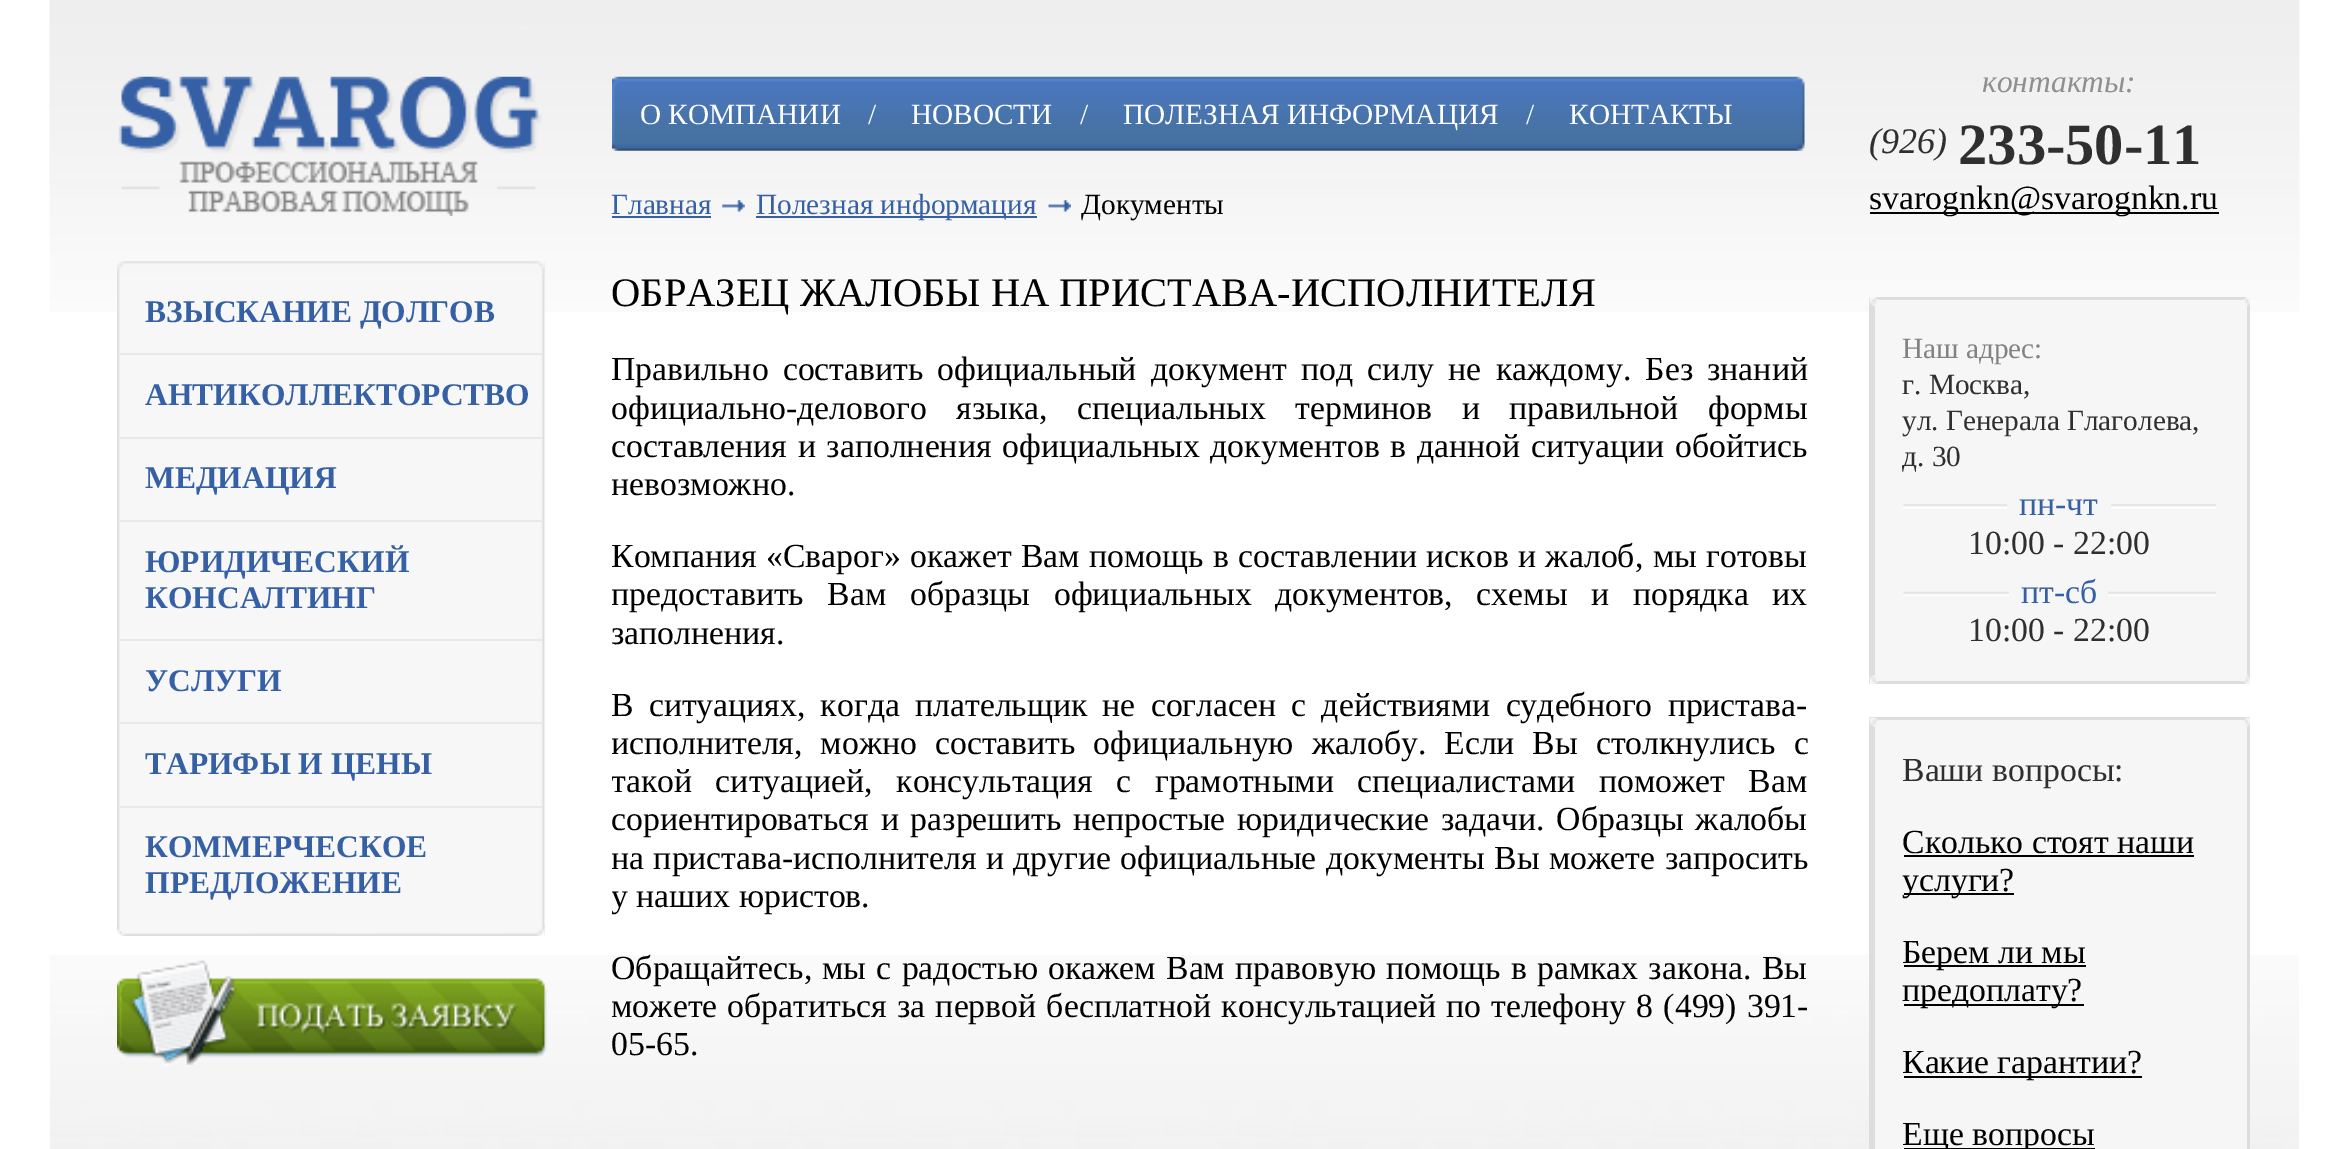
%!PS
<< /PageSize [2345 1149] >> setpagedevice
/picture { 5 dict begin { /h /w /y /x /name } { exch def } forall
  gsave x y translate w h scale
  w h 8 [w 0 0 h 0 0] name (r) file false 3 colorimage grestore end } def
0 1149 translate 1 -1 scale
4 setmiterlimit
1 setgray
0 0 2345 1149 rectfill
(img1.rgb) 49 0 2251 312 picture
(img2.rgb) 50 955 2249 194 picture
(img3.rgb) 118 76 424 140 picture
(img4.rgb) 117 261 428 675 picture
(img5.rgb) 117 261 428 13 picture
(img6.rgb) 117 925 428 11 picture
0.918 0.914 0.914 setrgbcolor
119 353 423 2 rectfill
/LiberationSerif-Bold [31.5 0 0 -31.5 0 0] selectfont
0.212 0.376 0.651 setrgbcolor
145 322 moveto (ВЗЫСКАНИЕ ДОЛГОВ) show
0.918 0.914 0.914 setrgbcolor
119 437 423 2 rectfill
0.212 0.376 0.651 setrgbcolor
145 405 moveto (АНТИКОЛЛЕКТОРСТВО) show
0.918 0.914 0.914 setrgbcolor
119 520 423 2 rectfill
0.212 0.376 0.651 setrgbcolor
145 488 moveto (МЕДИАЦИЯ) show
0.918 0.914 0.914 setrgbcolor
119 639 423 2 rectfill
0.212 0.376 0.651 setrgbcolor
145 572 moveto (ЮРИДИЧЕСКИЙ) show
145 608 moveto (КОНСАЛТИНГ) show
0.918 0.914 0.914 setrgbcolor
119 722 423 2 rectfill
0.212 0.376 0.651 setrgbcolor
145 691 moveto (УСЛУГИ) show
0.918 0.914 0.914 setrgbcolor
119 806 423 2 rectfill
0.212 0.376 0.651 setrgbcolor
145 774 moveto (ТАРИФЫ И ЦЕНЫ) show
145 857 moveto (КОММЕРЧЕСКОЕ) show
145 893 moveto (ПРЕДЛОЖЕНИЕ) show
(img7.rgb) 117 960 430 106 picture
(img8.rgb) 612 76 1193 75 picture
/LiberationSerif-Regular [29.25 0 0 -29.25 0 0] selectfont
1 setgray
640 124 moveto (О КОМПАНИИ) show
868 124 moveto (/) show
911 124 moveto (НОВОСТИ) show
1080 124 moveto (/) show
1123 124 moveto (ПОЛЕЗНАЯ ИНФОРМАЦИЯ) show
1526 124 moveto (/) show
1569 124 moveto (КОНТАКТЫ) show
0.212 0.376 0.651 setrgbcolor
611 214 moveto (Главная) show
612 216 99 2 rectfill
(img9.rgb) 722 200 23 12 picture
756 216 281 2 rectfill
756 214 moveto (Полезная информация) show
(img10.rgb) 1048 200 23 12 picture
0 setgray
1081 214 moveto (Документы) show
/LiberationSerif-Regular [40.5 0 0 -40.5 0 0] selectfont
611 306 moveto (ОБРАЗЕЦ ЖАЛОБЫ НА ПРИСТАВА-ИСПОЛНИТЕЛЯ) show
/LiberationSerif-Regular [33.75 0 0 -33.75 0 0] selectfont
611 380 moveto 5.75 0 32 (Правильно составить официальный документ под силу не каждому. Без знаний) widthshow
611 419 moveto 21 0 32 (официально-делового языка, специальных терминов и правильной формы) widthshow
611 457 moveto 2.25 0 32 (составления и заполнения официальных документов в данной ситуации обойтись) widthshow
gsave
612 77 1197 1021 rectclip
611 495 moveto (невозможно.) show
grestore
611 567 moveto 1 0 32 (Компания «Сварог» окажет Вам помощь в составлении исков и жалоб, мы готовы) widthshow
gsave
612 77 1197 1021 rectclip
611 605 moveto 15.25 0 32 (предоставить Вам образцы официальных документов, схемы и порядка их) widthshow
grestore
611 644 moveto (заполнения.) show
611 716 moveto 6.75 0 32 (В ситуациях, когда плательщик не согласен с действиями судебного пристава-) widthshow
gsave
612 77 1197 1021 rectclip
611 754 moveto 9.5 0 32 (исполнителя, можно составить официальную жалобу. Если Вы столкнулись с) widthshow
611 792 moveto 15 0 32 (такой ситуацией, консультация с грамотными специалистами поможет Вам) widthshow
grestore
611 830 moveto 3.25 0 32 (сориентироваться и разрешить непростые юридические задачи. Образцы жалобы) widthshow
gsave
612 77 1197 1021 rectclip
611 869 moveto 1 0 32 (на пристава-исполнителя и другие официальные документы Вы можете запросить) widthshow
611 907 moveto (у наших юристов.) show
grestore
611 979 moveto 1.75 0 32 (Обращайтесь, мы с радостью окажем Вам правовую помощь в рамках закона. Вы) widthshow
gsave
612 77 1197 1021 rectclip
611 1017 moveto 1.75 0 32 (можете обратиться за первой бесплатной консультацией по телефону 8 \(499\) 391-) widthshow
grestore
611 1055 moveto (05-65.) show
/LiberationSerif-Italic [31.5 0 0 -31.5 0 0] selectfont
0.561 setgray
1982 92 moveto (контакты:) show
/LiberationSerif-Italic [36 0 0 -36 0 0] selectfont
0.184 setgray
1869 153 moveto (\(926\)) show
/LiberationSerif-Bold [58.5 0 0 -58.5 0 0] selectfont
1958 164 moveto (233-50-11) show
0 setgray
1870 212 349 2 rectfill
/LiberationSerif-Regular [33.75 0 0 -33.75 0 0] selectfont
1869 209 moveto (svarognkn@svarognkn.ru) show
0.965 setgray
1875 300 372 381 rectfill
0.875 0.863 0.863 setrgbcolor
1869 297 381 3 rectfill
1869 681 381 3 rectfill
1869 300 6 381 rectfill
2247 300 3 381 rectfill
(img11.rgb) 1869 297 10 9 picture
(img12.rgb) 2243 297 7 9 picture
(img13.rgb) 1869 675 10 9 picture
(img14.rgb) 2243 675 7 9 picture
/LiberationSerif-Regular [29.25 0 0 -29.25 0 0] selectfont
0.51 setgray
1902 358 moveto (Наш адрес:) show
0.184 setgray
1902 394 moveto (г. Москва,) show
1902 430 moveto (ул. Генерала Глаголева,) show
1902 466 moveto (д. 30) show
(img15.rgb) 1903 504 314 5 picture
0.965 setgray
2007 504 104 5 rectfill
/LiberationSerif-Regular [33.75 0 0 -33.75 0 0] selectfont
0.212 0.376 0.651 setrgbcolor
2019 515 moveto (пн-чт) show
0.184 setgray
1968 554 moveto (10:00 - 22:00) show
(img16.rgb) 1903 591 314 5 picture
0.965 setgray
2009 591 99 5 rectfill
0.212 0.376 0.651 setrgbcolor
2021 603 moveto (пт-сб) show
0.184 setgray
1968 641 moveto (10:00 - 22:00) show
0.965 setgray
1875 720 372 429 rectfill
0.875 0.863 0.863 setrgbcolor
1869 717 381 3 rectfill
1869 720 6 429 rectfill
2247 720 3 429 rectfill
(img17.rgb) 1869 717 10 10 picture
(img18.rgb) 2243 717 7 10 picture
0.184 setgray
1902 781 moveto (Ваши вопросы:) show
0 setgray
1902 853 moveto (Сколько стоят наши) show
1904 855 290 2 rectfill
1904 893 110 2 rectfill
1902 891 moveto (услуги?) show
1904 965 182 2 rectfill
1902 963 moveto (Берем ли мы) show
1904 1004 180 2 rectfill
1902 1001 moveto (предоплату?) show
1904 1076 238 2 rectfill
1902 1073 moveto (Какие гарантии?) show
1904 1148 191 1 rectfill
1902 1145 moveto (Еще вопросы) show
showpage
